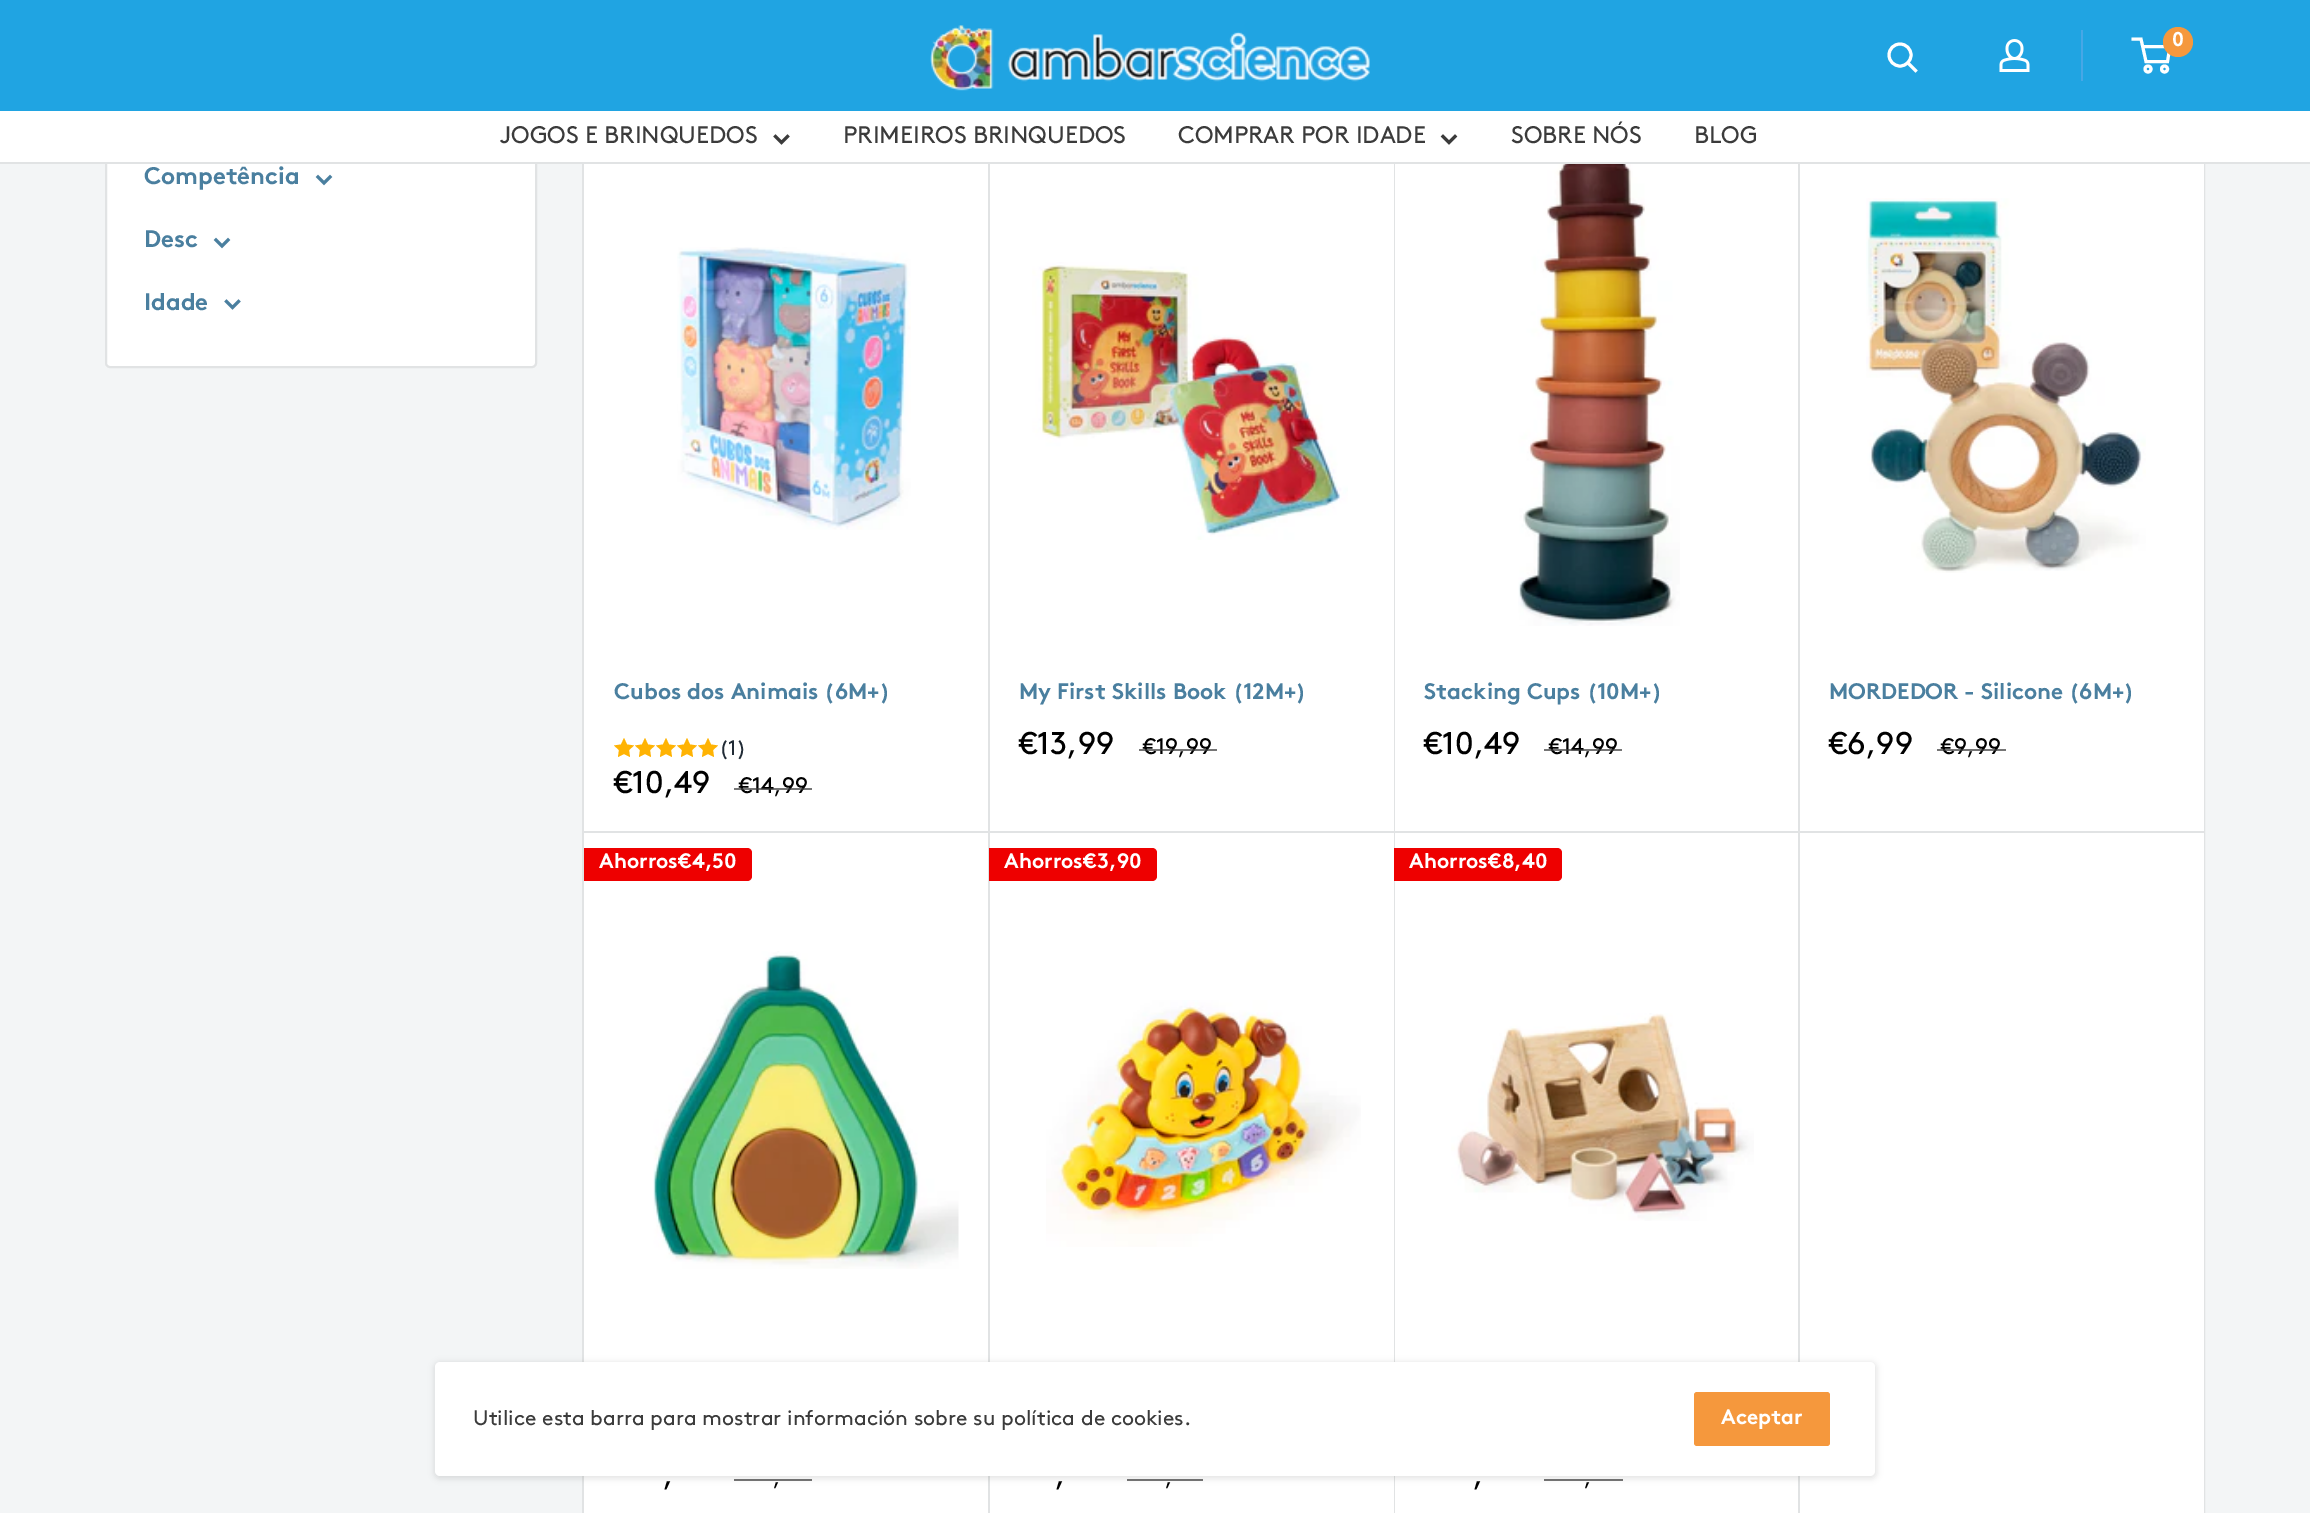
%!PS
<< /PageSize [2310 1513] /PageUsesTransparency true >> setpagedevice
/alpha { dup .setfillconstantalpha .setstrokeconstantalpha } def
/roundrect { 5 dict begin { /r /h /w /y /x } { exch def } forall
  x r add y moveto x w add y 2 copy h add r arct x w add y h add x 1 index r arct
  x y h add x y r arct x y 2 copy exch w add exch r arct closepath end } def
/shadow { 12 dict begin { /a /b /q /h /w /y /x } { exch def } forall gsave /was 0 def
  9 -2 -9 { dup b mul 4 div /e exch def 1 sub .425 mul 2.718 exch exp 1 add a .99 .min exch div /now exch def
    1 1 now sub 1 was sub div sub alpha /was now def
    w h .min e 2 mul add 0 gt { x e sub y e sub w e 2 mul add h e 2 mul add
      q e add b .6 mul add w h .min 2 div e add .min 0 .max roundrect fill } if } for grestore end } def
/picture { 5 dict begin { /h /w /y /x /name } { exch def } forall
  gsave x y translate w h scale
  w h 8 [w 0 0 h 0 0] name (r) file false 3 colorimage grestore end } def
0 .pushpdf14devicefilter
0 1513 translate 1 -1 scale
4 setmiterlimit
0.953 0.961 0.965 setrgbcolor
0 0 2310 1513 rectfill
1 setgray
106 -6 430 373 4 roundrect gsave fill grestore
0.882 0.89 0.894 setrgbcolor
2 setlinewidth
stroke
583 -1 1621 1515 rectstroke
1 setgray
584 164 1620 1349 rectfill
(img3.rgb) 677 247 234 283 picture
/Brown-Bold [22.5 0 0 -22.5 0 0] selectfont
0.29 0.498 0.624 setrgbcolor
614 699 moveto (Cubos dos Animais \(6M+\)) show
1 0.702 0.012 setrgbcolor
newpath 624 738 moveto 627 744.5 lineto 634 745.5 lineto 629 750 lineto 630 757 lineto 624 754 lineto 618 757 lineto 619 750 lineto 614 745.5 lineto 621 744.5 lineto closepath 645 738 moveto 648 744.5 lineto 655 745.5 lineto 650 750 lineto 651 757 lineto 645 754 lineto 639 757 lineto 640 750 lineto 635 745.5 lineto 642 744.5 lineto closepath 666 738 moveto 669 744.5 lineto 676 745.5 lineto 671 750 lineto 672 757 lineto 666 754 lineto 660 757 lineto 661 750 lineto 656 745.5 lineto 663 744.5 lineto closepath fill
newpath 687 738 moveto 690 744.5 lineto 697 745.5 lineto 692 750 lineto 693 757 lineto 687 754 lineto 681 757 lineto 682 750 lineto 677 745.5 lineto 684 744.5 lineto closepath 708 738 moveto 711 744.5 lineto 718 745.5 lineto 713 750 lineto 714 757 lineto 708 754 lineto 702 757 lineto 703 750 lineto 698 745.5 lineto 705 744.5 lineto closepath fill
/Brown-Regular [21 0 0 -21 0 0] selectfont
0.129 0.169 0.212 setrgbcolor
719 755 moveto (\(1\)) show
/Brown-Regular [31.5 0 0 -31.5 0 0] selectfont
0 setgray
614 793 moveto (€10,49) show
/Brown-Regular [22.5 0 0 -22.5 0 0] selectfont
739 793 moveto (€14,99) show
0.7 alpha
0.231 setgray
734 788 78 2 rectfill
1 alpha
0.882 0.89 0.894 setrgbcolor
newpath 584 831 moveto 584 833 lineto 989 833 lineto 989 101 lineto 988 101 lineto 988 831 lineto closepath fill
1394 164 1 667 rectfill
(img5.rgb) 1518 164 162 462 picture
/Brown-Bold [22.5 0 0 -22.5 0 0] selectfont
0.29 0.498 0.624 setrgbcolor
1424 699 moveto (Stacking Cups \(10M+\)) show
/Brown-Regular [31.5 0 0 -31.5 0 0] selectfont
0 setgray
1424 754 moveto (€10,49) show
/Brown-Regular [22.5 0 0 -22.5 0 0] selectfont
1549 754 moveto (€14,99) show
0.7 alpha
0.231 setgray
1544 749 78 2 rectfill
1 alpha
0.882 0.89 0.894 setrgbcolor
newpath 1394 831 moveto 1394 833 lineto 1799 833 lineto 1799 101 lineto 1798 101 lineto 1798 831 lineto closepath fill
0.125 0.643 0.886 setrgbcolor
0 0 2310 111 rectfill
(img1.rgb) 930 25 440 66 picture
(img2.rgb) 1999 39 31 33 picture
0.278 0.655 0.902 setrgbcolor
2081 30 2 51 rectfill
1 setgray
3 setlinewidth
newpath 2148 69 3 0 360 arc closepath stroke
newpath 2164.5 69 3 0 360 arc closepath stroke
newpath 2142.5 46.5 moveto 2170 46.5 lineto 2167.5 61.5 lineto 2146 61.5 lineto 2141 39 lineto 2131.5 39 lineto stroke
0.961 0.596 0.239 setrgbcolor
newpath 2178 42 15 0 360 arc closepath fill
/Brown-Bold [20 0 0 -20 0 0] selectfont
1 setgray
2172 46 moveto (0) show
2 setlinecap
newpath 1915.5 70.5 moveto 1908 63 lineto stroke
0 setlinecap
newpath 1900 55 11 0 360 arc closepath stroke
0 111 2310 51 rectfill
0.882 0.89 0.894 setrgbcolor
0 162 2310 2 rectfill
/Brown-Regular [24 0 0 -24 0 0] selectfont
0.231 setgray
500 143 moveto (JOGOS E BRINQUEDOS) show
2 setlinecap
newpath 787.5 136.5 moveto 781.5 142.5 lineto 775.5 136.5 lineto stroke
843 143 moveto (PRIMEIROS BRINQUEDOS) show
1178 143 moveto (COMPRAR POR IDADE) show
newpath 1455 136.5 moveto 1449 142.5 lineto 1443 136.5 lineto stroke
1511 143 moveto (SOBRE NÓS) show
1694 143 moveto (BLOG) show
/Brown-Bold [24 0 0 -24 0 0] selectfont
0.29 0.498 0.624 setrgbcolor
144 184 moveto (Competência) show
newpath 330 177 moveto 324 183 lineto 318 177 lineto stroke
144 247 moveto (Desc) show
newpath 228 240 moveto 222 246 lineto 216 240 lineto stroke
144 310 moveto (Idade) show
newpath 238.5 301.5 moveto 232.5 307.5 lineto 226.5 301.5 lineto stroke
0.882 0.89 0.894 setrgbcolor
989 164 1 667 rectfill
newpath 989 831 moveto 989 833 lineto 1394 833 lineto 1394 101 lineto 1394 831 lineto closepath fill
(img4.rgb) 1032 262 316 278 picture
/Brown-Bold [22.5 0 0 -22.5 0 0] selectfont
0.29 0.498 0.624 setrgbcolor
1019 699 moveto (My First Skills Book \(12M+\)) show
/Brown-Regular [31.5 0 0 -31.5 0 0] selectfont
0 setgray
1019 754 moveto (€13,99) show
/Brown-Regular [22.5 0 0 -22.5 0 0] selectfont
1143 754 moveto (€19,99) show
0.7 alpha
0.231 setgray
1139 749 78 2 rectfill
1 alpha
0.882 0.89 0.894 setrgbcolor
1799 164 1 667 rectfill
(img6.rgb) 1866 198 280 375 picture
/Brown-Bold [22.5 0 0 -22.5 0 0] selectfont
0.29 0.498 0.624 setrgbcolor
1829 699 moveto (MORDEDOR - Silicone \(6M+\)) show
/Brown-Regular [31.5 0 0 -31.5 0 0] selectfont
0 setgray
1829 754 moveto (€6,99) show
/Brown-Regular [22.5 0 0 -22.5 0 0] selectfont
1941 754 moveto (€9,99) show
0.7 alpha
0.231 setgray
1937 749 69 2 rectfill
1 alpha
0.882 0.89 0.894 setrgbcolor
newpath 1799 831 moveto 1799 833 lineto 2204 833 lineto 2204 104 lineto 2204 102 lineto 2204 831 lineto closepath fill
0.933 0 0 setrgbcolor
newpath 584 848 moveto 747 848 lineto 750 848 752 850 752 853 curveto 752 876 lineto 752 879 750 881 747 881 curveto 584 881 lineto closepath fill
/Brown-Bold [21 0 0 -21 0 0] selectfont
1 setgray
599 868 moveto (Ahorros€4,50) show
0.882 0.89 0.894 setrgbcolor
newpath 587 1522 moveto 589 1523 lineto 990 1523 lineto 990 831 lineto 988 831 lineto 988 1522 lineto closepath fill
(img7.rgb) 653 951 306 318 picture
/Brown-Regular [31.5 0 0 -31.5 0 0] selectfont
0 setgray
663 1485 moveto (,) show
0.7 alpha
0.231 setgray
734 1479 78 2 rectfill
/Brown-Regular [22.5 0 0 -22.5 0 0] selectfont
1 alpha
0 setgray
773 1485 moveto (,) show
0.933 0 0 setrgbcolor
newpath 989 848 moveto 1152 848 lineto 1155 848 1157 850 1157 853 curveto 1157 876 lineto 1157 879 1155 881 1152 881 curveto 989 881 lineto closepath fill
/Brown-Bold [21 0 0 -21 0 0] selectfont
1 setgray
1004 868 moveto (Ahorros€3,90) show
0.882 0.89 0.894 setrgbcolor
newpath 990 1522 moveto 990 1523 lineto 1395 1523 lineto 1395 831 lineto 1394 831 lineto 1394 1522 lineto closepath fill
(img8.rgb) 1046 1000 315 247 picture
/Brown-Regular [31.5 0 0 -31.5 0 0] selectfont
0 setgray
1055 1485 moveto (,) show
0.7 alpha
0.231 setgray
1127 1479 76 2 rectfill
/Brown-Regular [22.5 0 0 -22.5 0 0] selectfont
1 alpha
0 setgray
1165 1485 moveto (,) show
0.933 0 0 setrgbcolor
newpath 1394 848 moveto 1557 848 lineto 1560 848 1562 850 1562 853 curveto 1562 876 lineto 1562 879 1560 881 1557 881 curveto 1394 881 lineto closepath fill
/Brown-Bold [21 0 0 -21 0 0] selectfont
1 setgray
1409 868 moveto (Ahorros€8,40) show
0.882 0.89 0.894 setrgbcolor
newpath 1395 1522 moveto 1395 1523 lineto 1800 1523 lineto 1800 831 lineto 1798 831 lineto 1798 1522 lineto closepath fill
(img9.rgb) 1451 1013 303 208 picture
/Brown-Regular [31.5 0 0 -31.5 0 0] selectfont
0 setgray
1473 1485 moveto (,) show
0.7 alpha
0.231 setgray
1544 1479 79 2 rectfill
/Brown-Regular [22.5 0 0 -22.5 0 0] selectfont
1 alpha
0 setgray
1584 1485 moveto (,) show
434 1362 1443 117 6 3 0.1 shadow
1 setgray
435 1362 1440 114 5 roundrect fill
/Brown-Regular [21 0 0 -21 0 0] selectfont
0.231 setgray
473 1425 moveto (Utilice esta barra para mostrar información sobre su política de cookies.) show
0.961 0.596 0.239 setrgbcolor
1694 1392 136 54 3 roundrect fill
/Brown-Bold [21 0 0 -21 0 0] selectfont
1 setgray
1721 1424 moveto (Aceptar) show
.poppdf14devicefilter showpage
